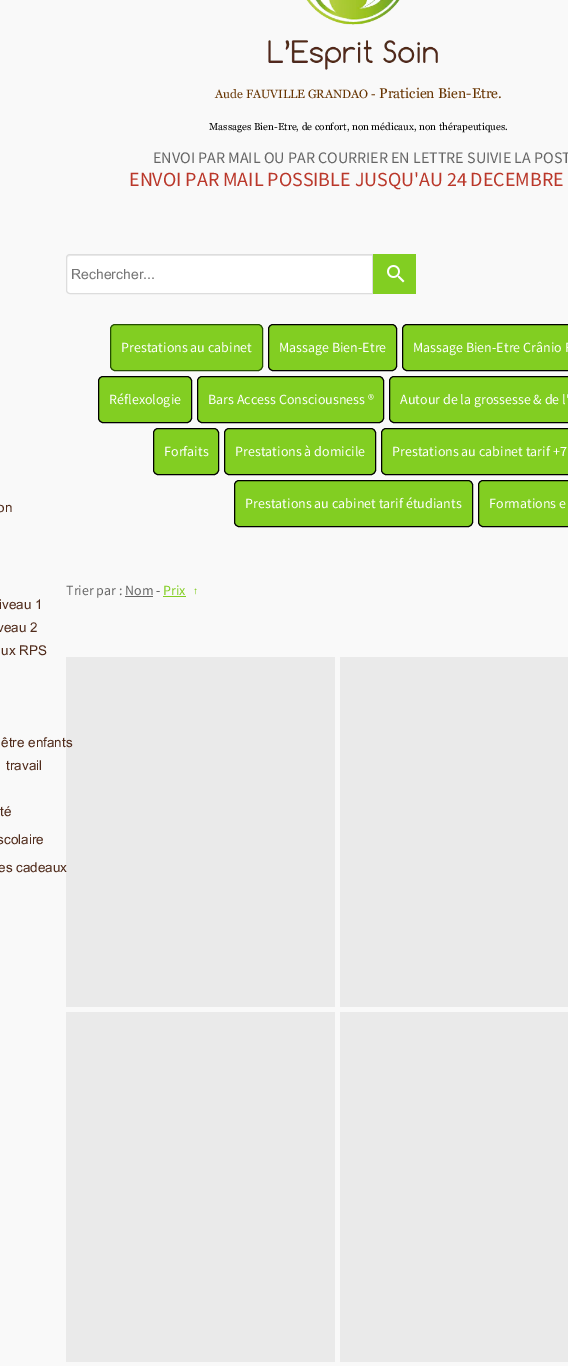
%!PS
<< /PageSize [568 1366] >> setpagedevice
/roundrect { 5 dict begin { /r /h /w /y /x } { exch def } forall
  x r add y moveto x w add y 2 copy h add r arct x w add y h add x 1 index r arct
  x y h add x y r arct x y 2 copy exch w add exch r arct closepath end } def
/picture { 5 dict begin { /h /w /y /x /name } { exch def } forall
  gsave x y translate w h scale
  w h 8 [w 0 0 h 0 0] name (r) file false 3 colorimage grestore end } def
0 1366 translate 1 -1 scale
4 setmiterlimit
0.976 setgray
0 0 568 1366 rectfill
(img1.rgb) 268 0 170 70 picture
/Georgia-Regular [12 0 0 -12 0 0] selectfont
0.4 0.2 0 setrgbcolor
215 98 moveto (Aude FAUVILLE GRANDAO -) show
/Georgia-Regular [14 0 0 -14 0 0] selectfont
379 98 moveto (Praticien Bien-Etre.) show
/Georgia-Regular [10 0 0 -10 0 0] selectfont
0 setgray
209 130 moveto (Massages Bien-Etre, de confort, non médicaux, non thérapeutiques.) show
/SourceSansPro-Regular [16 0 0 -16 0 0] selectfont
0.396 setgray
153 163 moveto (ENVOI PAR MAIL OU PAR COURRIER EN LETTRE SUIVIE LA POST) show
/SourceSansPro-Regular [20 0 0 -20 0 0] selectfont
0.729 0.216 0.165 setrgbcolor
129 186 moveto (ENVOI PAR MAIL POSSIBLE JUSQU'AU 24 DECEMBRE) show
1 setgray
newpath 70 254 moveto 373 254 lineto 373 294 lineto 70 294 lineto 68 294 66 292 66 290 curveto 66 258 lineto 66 256 68 254 70 254 curveto closepath fill
0.925 setgray
newpath 70 256 moveto 372 256 lineto 372 255 lineto 70 255 lineto 68 255 67 257 67 259 curveto 67 257 68 256 70 256 curveto closepath fill
0.867 setgray
newpath 70 254.5 moveto 372.5 254.5 lineto 372.5 293.5 lineto 70 293.5 lineto 68 293.5 66.5 292 66.5 290 curveto 66.5 258 lineto 66.5 256 68 254.5 70 254.5 curveto closepath stroke
/Arial-Regular [14 0 0 -14 0 0] selectfont
0.459 setgray
71 279 moveto (Rechercher...) show
0.51 0.808 0.133 setrgbcolor
373 254 43 40 rectfill
(img2.rgb) 387 265 18 18 picture
110.5 324.5 152 46 4.5 roundrect gsave fill grestore
0.141 0.306 0 setrgbcolor
stroke
/SourceSansPro-Regular [14 0 0 -14 0 0] selectfont
1 setgray
121 352 moveto (Prestations au cabinet) show
0.51 0.808 0.133 setrgbcolor
268.5 324.5 128 46 4.5 roundrect gsave fill grestore
0 setgray
stroke
1 setgray
279 352 moveto (Massage Bien-Etre) show
0.51 0.808 0.133 setrgbcolor
402.5 324.5 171 46 4.5 roundrect gsave fill grestore
0 setgray
stroke
1 setgray
413 352 moveto (Massage Bien-Etre Crânio F) show
0.51 0.808 0.133 setrgbcolor
98.5 376.5 93 46 4.5 roundrect gsave fill grestore
0 setgray
stroke
1 setgray
109 404 moveto (Réflexologie) show
0.51 0.808 0.133 setrgbcolor
197.5 376.5 186 46 4.5 roundrect gsave fill grestore
0 setgray
stroke
1 setgray
208 404 moveto (Bars Access Consciousness ®) show
0.51 0.808 0.133 setrgbcolor
389.5 376.5 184 46 4.5 roundrect gsave fill grestore
0 setgray
stroke
1 setgray
400 404 moveto (Autour de la grossesse & de l') show
0.51 0.808 0.133 setrgbcolor
153.5 428.5 65 46 4.5 roundrect gsave fill grestore
0 setgray
stroke
1 setgray
164 456 moveto (Forfaits) show
0.51 0.808 0.133 setrgbcolor
224.5 428.5 151 46 4.5 roundrect gsave fill grestore
0 setgray
stroke
1 setgray
235 456 moveto (Prestations à domicile) show
0.51 0.808 0.133 setrgbcolor
381.5 428.5 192 46 4.5 roundrect gsave fill grestore
0 setgray
stroke
1 setgray
392 456 moveto (Prestations au cabinet tarif +7) show
0.51 0.808 0.133 setrgbcolor
234.5 480.5 238 46 4.5 roundrect gsave fill grestore
0 setgray
stroke
1 setgray
245 508 moveto (Prestations au cabinet tarif étudiants) show
0.51 0.808 0.133 setrgbcolor
478.5 480.5 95 46 4.5 roundrect gsave fill grestore
0 setgray
stroke
1 setgray
489 508 moveto (Formations e) show
0.396 setgray
66 595 moveto (Trier par : Nom -) show
0.51 0.808 0.133 setrgbcolor
163 595 moveto (Prix) show
163 596 23 1 rectfill
/LiberationSerif-Regular [10 0 0 -10 0 0] selectfont
193 594 moveto (↑) show
0.396 setgray
125 596 28 1 rectfill
0.918 setgray
66 657 269 350 rectfill
340 657 228 350 rectfill
66 1012 269 350 rectfill
340 1012 228 350 rectfill
/Arial-Regular [13.5 0 0 -13.5 0 0] selectfont
0.314 0.169 0.106 setrgbcolor
-3 512 moveto (on) show
-1 609 moveto (iveau 1) show
-3 632 moveto (veau 2) show
1 655 moveto (ux RPS) show
1 747 moveto (être enfants) show
6 770 moveto (travail) show
0 816 moveto (té) show
-3 844 moveto (scolaire) show
-2 872 moveto (es cadeaux) show
showpage
